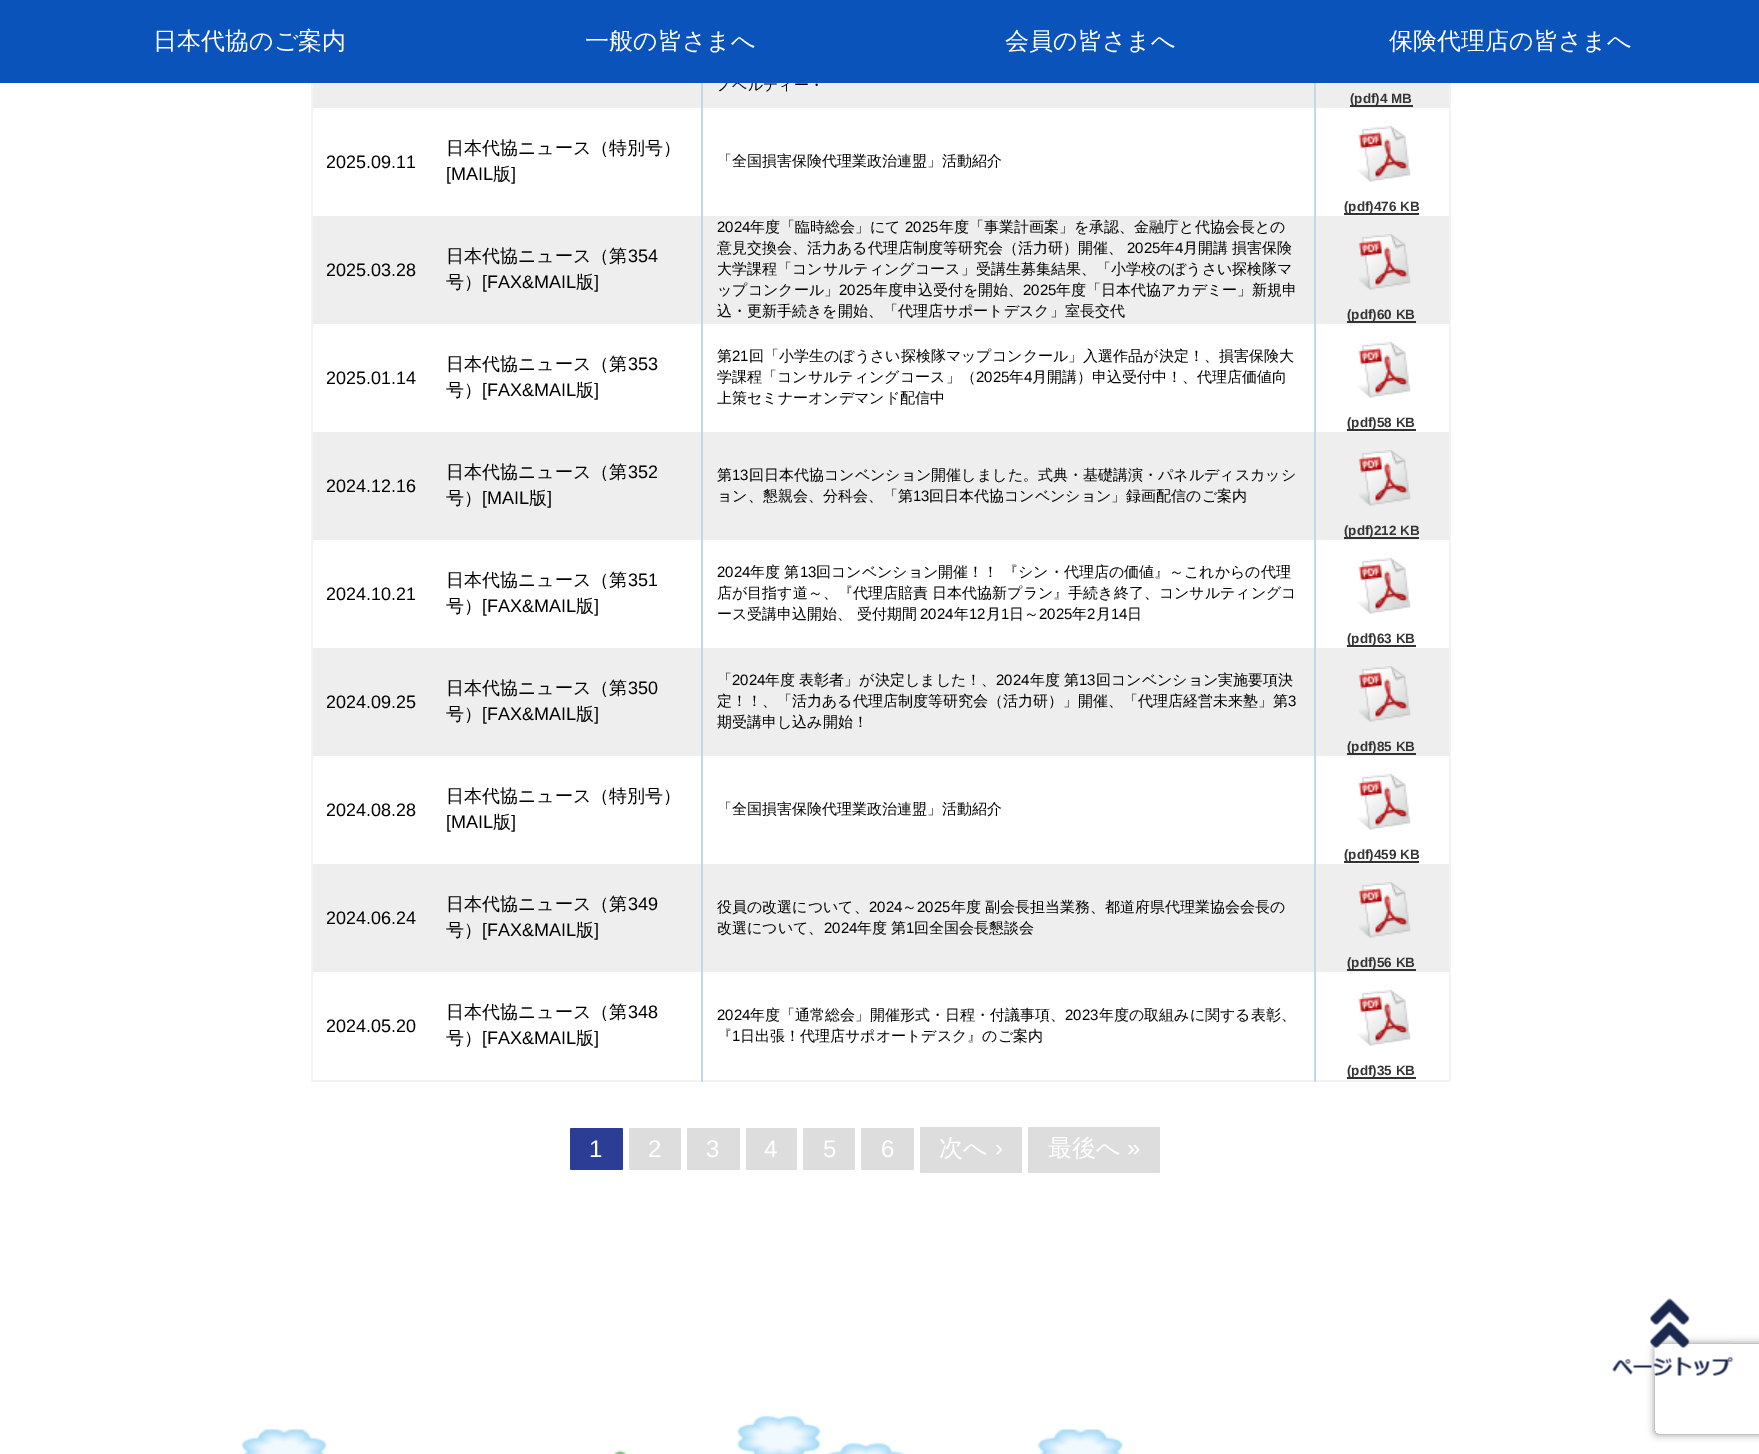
%!PS
<< /PageSize [1759 1454] /PageUsesTransparency true >> setpagedevice
/alpha { dup .setfillconstantalpha .setstrokeconstantalpha } def
/roundrect { 5 dict begin { /r /h /w /y /x } { exch def } forall
  x r add y moveto x w add y 2 copy h add r arct x w add y h add x 1 index r arct
  x y h add x y r arct x y 2 copy exch w add exch r arct closepath end } def
/shadow { 12 dict begin { /a /b /q /h /w /y /x } { exch def } forall gsave /was 0 def
  9 -2 -9 { dup b mul 4 div /e exch def 1 sub .425 mul 2.718 exch exp 1 add a .99 .min exch div /now exch def
    1 1 now sub 1 was sub div sub alpha /was now def
    w h .min e 2 mul add 0 gt { x e sub y e sub w e 2 mul add h e 2 mul add
      q e add b .6 mul add w h .min 2 div e add .min 0 .max roundrect fill } if } for grestore end } def
/picture { 5 dict begin { /h /w /y /x /name } { exch def } forall
  gsave x y translate w h scale
  w h 8 [w 0 0 h 0 0] name (r) file false 3 colorimage grestore end } def
0 .pushpdf14devicefilter
0 1454 translate 1 -1 scale
4 setmiterlimit
1 setgray
0 0 1759 1454 rectfill
0.933 setgray
703 83 611 25 rectfill
/WenQuanYiZenHei-Medium [15 0 0 -15 0 0] selectfont
0 setgray
717 90 moveto (ノベルティー・) show
0.039 0.325 0.729 setrgbcolor
0 0 1759 83 rectfill
/WenQuanYiZenHei-Medium [24 0 0 -24 0 0] selectfont
1 setgray
153 49 moveto (日本代協のご案内) show
585 49 moveto (一般の皆さまへ) show
1005 49 moveto (会員の皆さまへ) show
1389 49 moveto (保険代理店の皆さまへ) show
0.953 setgray
1449 83 2 999 rectfill
311 1080 1140 2 rectfill
311 83 2 999 rectfill
0.933 setgray
313 83 388 25 rectfill
1316 83 133 25 rectfill
0.2 setgray
1350 105 63 2 rectfill
/LiberationSans-Bold [13.5 0 0 -13.5 0 0] selectfont
1350 103 moveto (\(pdf\)4 MB) show
/LiberationSans-Regular [18 0 0 -18 0 0] selectfont
0 setgray
326 168 moveto (2025.09.11) show
/WenQuanYiZenHei-Medium [18 0 0 -18 0 0] selectfont
446 154 moveto (日本代協ニュース（特別号）) show
/LiberationSans-Regular [18 0 0 -18 0 0] selectfont
446 180 moveto ([MAIL) show
/WenQuanYiZenHei-Medium [18 0 0 -18 0 0] selectfont
493 180 moveto (版) show
/LiberationSans-Regular [18 0 0 -18 0 0] selectfont
511 180 moveto (]) show
/WenQuanYiZenHei-Medium [15 0 0 -15 0 0] selectfont
717 166 moveto (「全国損害保険代理業政治連盟」活動紹介) show
(img1.rgb) 1358 125 53 57 picture
0.2 setgray
1344 213 75 2 rectfill
/LiberationSans-Bold [13.5 0 0 -13.5 0 0] selectfont
1344 211 moveto (\(pdf\)476 KB) show
0.933 setgray
313 216 388 108 rectfill
/LiberationSans-Regular [18 0 0 -18 0 0] selectfont
0 setgray
326 276 moveto (2025.03.28) show
/WenQuanYiZenHei-Medium [18 0 0 -18 0 0] selectfont
446 262 moveto (日本代協ニュース（第) show
/LiberationSans-Regular [18 0 0 -18 0 0] selectfont
628 262 moveto (354) show
/WenQuanYiZenHei-Medium [18 0 0 -18 0 0] selectfont
446 288 moveto (号）) show
/LiberationSans-Regular [18 0 0 -18 0 0] selectfont
482 288 moveto ([FAX&MAIL) show
/WenQuanYiZenHei-Medium [18 0 0 -18 0 0] selectfont
576 288 moveto (版) show
/LiberationSans-Regular [18 0 0 -18 0 0] selectfont
594 288 moveto (]) show
0.933 setgray
703 216 611 108 rectfill
/LiberationSans-Regular [15 0 0 -15 0 0] selectfont
0 setgray
717 232 moveto (2024) show
/WenQuanYiZenHei-Medium [15 0 0 -15 0 0] selectfont
750 232 moveto (年度「臨時総会」にて) show
/LiberationSans-Regular [15 0 0 -15 0 0] selectfont
905 232 moveto (2025) show
/WenQuanYiZenHei-Medium [15 0 0 -15 0 0] selectfont
939 232 moveto (年度「事業計画案」を承認、金融庁と代協会長との) show
717 253 moveto (意見交換会、活力ある代理店制度等研究会（活力研）開催、) show
/LiberationSans-Regular [15 0 0 -15 0 0] selectfont
1127 253 moveto (2025) show
/WenQuanYiZenHei-Medium [15 0 0 -15 0 0] selectfont
1160 253 moveto (年) show
/LiberationSans-Regular [15 0 0 -15 0 0] selectfont
1175 253 moveto (4) show
/WenQuanYiZenHei-Medium [15 0 0 -15 0 0] selectfont
1183 253 moveto (月開講 損害保険) show
717 274 moveto (大学課程「コンサルティングコース」受講生募集結果、「小学校のぼうさい探検隊マ) show
717 295 moveto (ップコンクール」) show
/LiberationSans-Regular [15 0 0 -15 0 0] selectfont
839 295 moveto (2025) show
/WenQuanYiZenHei-Medium [15 0 0 -15 0 0] selectfont
873 295 moveto (年度申込受付を開始、) show
/LiberationSans-Regular [15 0 0 -15 0 0] selectfont
1023 295 moveto (2025) show
/WenQuanYiZenHei-Medium [15 0 0 -15 0 0] selectfont
1056 295 moveto (年度「日本代協アカデミー」新規申) show
717 316 moveto (込・更新手続きを開始、「代理店サポートデスク」室長交代) show
0.933 setgray
1316 216 133 108 rectfill
(img2.rgb) 1358 234 53 56 picture
0.2 setgray
1347 321 69 2 rectfill
/LiberationSans-Bold [13.5 0 0 -13.5 0 0] selectfont
1347 319 moveto (\(pdf\)60 KB) show
/LiberationSans-Regular [18 0 0 -18 0 0] selectfont
0 setgray
326 384 moveto (2025.01.14) show
/WenQuanYiZenHei-Medium [18 0 0 -18 0 0] selectfont
446 370 moveto (日本代協ニュース（第) show
/LiberationSans-Regular [18 0 0 -18 0 0] selectfont
628 370 moveto (353) show
/WenQuanYiZenHei-Medium [18 0 0 -18 0 0] selectfont
446 396 moveto (号）) show
/LiberationSans-Regular [18 0 0 -18 0 0] selectfont
482 396 moveto ([FAX&MAIL) show
/WenQuanYiZenHei-Medium [18 0 0 -18 0 0] selectfont
576 396 moveto (版) show
/LiberationSans-Regular [18 0 0 -18 0 0] selectfont
594 396 moveto (]) show
/WenQuanYiZenHei-Medium [15 0 0 -15 0 0] selectfont
717 361 moveto (第) show
/LiberationSans-Regular [15 0 0 -15 0 0] selectfont
732 361 moveto (21) show
/WenQuanYiZenHei-Medium [15 0 0 -15 0 0] selectfont
749 361 moveto (回「小学生のぼうさい探検隊マップコンクール」入選作品が決定！、損害保険大) show
717 382 moveto (学課程「コンサルティングコース」（) show
/LiberationSans-Regular [15 0 0 -15 0 0] selectfont
976 382 moveto (2025) show
/WenQuanYiZenHei-Medium [15 0 0 -15 0 0] selectfont
1009 382 moveto (年) show
/LiberationSans-Regular [15 0 0 -15 0 0] selectfont
1024 382 moveto (4) show
/WenQuanYiZenHei-Medium [15 0 0 -15 0 0] selectfont
1032 382 moveto (月開講）申込受付中！、代理店価値向) show
717 403 moveto (上策セミナーオンデマンド配信中) show
(img1.rgb) 1358 341 53 57 picture
0.2 setgray
1347 429 69 2 rectfill
/LiberationSans-Bold [13.5 0 0 -13.5 0 0] selectfont
1347 427 moveto (\(pdf\)58 KB) show
0.933 setgray
313 432 388 108 rectfill
/LiberationSans-Regular [18 0 0 -18 0 0] selectfont
0 setgray
326 492 moveto (2024.12.16) show
/WenQuanYiZenHei-Medium [18 0 0 -18 0 0] selectfont
446 478 moveto (日本代協ニュース（第) show
/LiberationSans-Regular [18 0 0 -18 0 0] selectfont
628 478 moveto (352) show
/WenQuanYiZenHei-Medium [18 0 0 -18 0 0] selectfont
446 504 moveto (号）) show
/LiberationSans-Regular [18 0 0 -18 0 0] selectfont
482 504 moveto ([MAIL) show
/WenQuanYiZenHei-Medium [18 0 0 -18 0 0] selectfont
529 504 moveto (版) show
/LiberationSans-Regular [18 0 0 -18 0 0] selectfont
547 504 moveto (]) show
0.933 setgray
703 432 611 108 rectfill
/WenQuanYiZenHei-Medium [15 0 0 -15 0 0] selectfont
0 setgray
717 480 moveto (第) show
/LiberationSans-Regular [15 0 0 -15 0 0] selectfont
732 480 moveto (13) show
/WenQuanYiZenHei-Medium [15 0 0 -15 0 0] selectfont
749 480 moveto (回日本代協コンベンション開催しました。式典・基礎講演・パネルディスカッシ) show
717 501 moveto (ョン、懇親会、分科会、「第) show
/LiberationSans-Regular [15 0 0 -15 0 0] selectfont
913 501 moveto (13) show
/WenQuanYiZenHei-Medium [15 0 0 -15 0 0] selectfont
929 501 moveto (回日本代協コンベンション」録画配信のご案内) show
0.933 setgray
1316 432 133 108 rectfill
(img2.rgb) 1358 450 53 56 picture
0.2 setgray
1344 537 75 2 rectfill
/LiberationSans-Bold [13.5 0 0 -13.5 0 0] selectfont
1344 535 moveto (\(pdf\)212 KB) show
/LiberationSans-Regular [18 0 0 -18 0 0] selectfont
0 setgray
326 600 moveto (2024.10.21) show
/WenQuanYiZenHei-Medium [18 0 0 -18 0 0] selectfont
446 586 moveto (日本代協ニュース（第) show
/LiberationSans-Regular [18 0 0 -18 0 0] selectfont
628 586 moveto (351) show
/WenQuanYiZenHei-Medium [18 0 0 -18 0 0] selectfont
446 612 moveto (号）) show
/LiberationSans-Regular [18 0 0 -18 0 0] selectfont
482 612 moveto ([FAX&MAIL) show
/WenQuanYiZenHei-Medium [18 0 0 -18 0 0] selectfont
576 612 moveto (版) show
/LiberationSans-Regular [18 0 0 -18 0 0] selectfont
594 612 moveto (]) show
/LiberationSans-Regular [15 0 0 -15 0 0] selectfont
717 577 moveto (2024) show
/WenQuanYiZenHei-Medium [15 0 0 -15 0 0] selectfont
750 577 moveto (年度 第) show
/LiberationSans-Regular [15 0 0 -15 0 0] selectfont
800 577 moveto (13) show
/WenQuanYiZenHei-Medium [15 0 0 -15 0 0] selectfont
816 577 moveto (回コンベンション開催！！ 『シン・代理店の価値』～これからの代理) show
717 598 moveto (店が目指す道～、『代理店賠責 日本代協新プラン』手続き終了、コンサルティングコ) show
717 619 moveto (ース受講申込開始、 受付期間) show
/LiberationSans-Regular [15 0 0 -15 0 0] selectfont
920 619 moveto (2024) show
/WenQuanYiZenHei-Medium [15 0 0 -15 0 0] selectfont
954 619 moveto (年) show
/LiberationSans-Regular [15 0 0 -15 0 0] selectfont
969 619 moveto (12) show
/WenQuanYiZenHei-Medium [15 0 0 -15 0 0] selectfont
986 619 moveto (月) show
/LiberationSans-Regular [15 0 0 -15 0 0] selectfont
1001 619 moveto (1) show
/WenQuanYiZenHei-Medium [15 0 0 -15 0 0] selectfont
1009 619 moveto (日～) show
/LiberationSans-Regular [15 0 0 -15 0 0] selectfont
1039 619 moveto (2025) show
/WenQuanYiZenHei-Medium [15 0 0 -15 0 0] selectfont
1072 619 moveto (年) show
/LiberationSans-Regular [15 0 0 -15 0 0] selectfont
1087 619 moveto (2) show
/WenQuanYiZenHei-Medium [15 0 0 -15 0 0] selectfont
1096 619 moveto (月) show
/LiberationSans-Regular [15 0 0 -15 0 0] selectfont
1111 619 moveto (14) show
/WenQuanYiZenHei-Medium [15 0 0 -15 0 0] selectfont
1127 619 moveto (日) show
(img1.rgb) 1358 557 53 57 picture
0.2 setgray
1347 645 69 2 rectfill
/LiberationSans-Bold [13.5 0 0 -13.5 0 0] selectfont
1347 643 moveto (\(pdf\)63 KB) show
0.933 setgray
313 648 388 108 rectfill
/LiberationSans-Regular [18 0 0 -18 0 0] selectfont
0 setgray
326 708 moveto (2024.09.25) show
/WenQuanYiZenHei-Medium [18 0 0 -18 0 0] selectfont
446 694 moveto (日本代協ニュース（第) show
/LiberationSans-Regular [18 0 0 -18 0 0] selectfont
628 694 moveto (350) show
/WenQuanYiZenHei-Medium [18 0 0 -18 0 0] selectfont
446 720 moveto (号）) show
/LiberationSans-Regular [18 0 0 -18 0 0] selectfont
482 720 moveto ([FAX&MAIL) show
/WenQuanYiZenHei-Medium [18 0 0 -18 0 0] selectfont
576 720 moveto (版) show
/LiberationSans-Regular [18 0 0 -18 0 0] selectfont
594 720 moveto (]) show
0.933 setgray
703 648 611 108 rectfill
/WenQuanYiZenHei-Medium [15 0 0 -15 0 0] selectfont
0 setgray
717 685 moveto (「) show
/LiberationSans-Regular [15 0 0 -15 0 0] selectfont
732 685 moveto (2024) show
/WenQuanYiZenHei-Medium [15 0 0 -15 0 0] selectfont
765 685 moveto (年度 表彰者」が決定しました！、) show
/LiberationSans-Regular [15 0 0 -15 0 0] selectfont
996 685 moveto (2024) show
/WenQuanYiZenHei-Medium [15 0 0 -15 0 0] selectfont
1030 685 moveto (年度 第) show
/LiberationSans-Regular [15 0 0 -15 0 0] selectfont
1079 685 moveto (13) show
/WenQuanYiZenHei-Medium [15 0 0 -15 0 0] selectfont
1096 685 moveto (回コンベンション実施要項決) show
717 706 moveto (定！！、「活力ある代理店制度等研究会（活力研）」開催、「代理店経営未来塾」第) show
/LiberationSans-Regular [15 0 0 -15 0 0] selectfont
1288 706 moveto (3) show
/WenQuanYiZenHei-Medium [15 0 0 -15 0 0] selectfont
717 727 moveto (期受講申し込み開始！) show
0.933 setgray
1316 648 133 108 rectfill
(img2.rgb) 1358 666 53 56 picture
0.2 setgray
1347 753 69 2 rectfill
/LiberationSans-Bold [13.5 0 0 -13.5 0 0] selectfont
1347 751 moveto (\(pdf\)85 KB) show
/LiberationSans-Regular [18 0 0 -18 0 0] selectfont
0 setgray
326 816 moveto (2024.08.28) show
/WenQuanYiZenHei-Medium [18 0 0 -18 0 0] selectfont
446 802 moveto (日本代協ニュース（特別号）) show
/LiberationSans-Regular [18 0 0 -18 0 0] selectfont
446 828 moveto ([MAIL) show
/WenQuanYiZenHei-Medium [18 0 0 -18 0 0] selectfont
493 828 moveto (版) show
/LiberationSans-Regular [18 0 0 -18 0 0] selectfont
511 828 moveto (]) show
/WenQuanYiZenHei-Medium [15 0 0 -15 0 0] selectfont
717 814 moveto (「全国損害保険代理業政治連盟」活動紹介) show
(img1.rgb) 1358 773 53 57 picture
0.2 setgray
1344 861 75 2 rectfill
/LiberationSans-Bold [13.5 0 0 -13.5 0 0] selectfont
1344 859 moveto (\(pdf\)459 KB) show
0.933 setgray
313 864 388 108 rectfill
/LiberationSans-Regular [18 0 0 -18 0 0] selectfont
0 setgray
326 924 moveto (2024.06.24) show
/WenQuanYiZenHei-Medium [18 0 0 -18 0 0] selectfont
446 910 moveto (日本代協ニュース（第) show
/LiberationSans-Regular [18 0 0 -18 0 0] selectfont
628 910 moveto (349) show
/WenQuanYiZenHei-Medium [18 0 0 -18 0 0] selectfont
446 936 moveto (号）) show
/LiberationSans-Regular [18 0 0 -18 0 0] selectfont
482 936 moveto ([FAX&MAIL) show
/WenQuanYiZenHei-Medium [18 0 0 -18 0 0] selectfont
576 936 moveto (版) show
/LiberationSans-Regular [18 0 0 -18 0 0] selectfont
594 936 moveto (]) show
0.933 setgray
703 864 611 108 rectfill
/WenQuanYiZenHei-Medium [15 0 0 -15 0 0] selectfont
0 setgray
717 912 moveto (役員の改選について、) show
/LiberationSans-Regular [15 0 0 -15 0 0] selectfont
869 912 moveto (2024) show
/WenQuanYiZenHei-Medium [15 0 0 -15 0 0] selectfont
902 912 moveto (～) show
/LiberationSans-Regular [15 0 0 -15 0 0] selectfont
917 912 moveto (2025) show
/WenQuanYiZenHei-Medium [15 0 0 -15 0 0] selectfont
951 912 moveto (年度 副会長担当業務、都道府県代理業協会会長の) show
717 933 moveto (改選について、) show
/LiberationSans-Regular [15 0 0 -15 0 0] selectfont
824 933 moveto (2024) show
/WenQuanYiZenHei-Medium [15 0 0 -15 0 0] selectfont
857 933 moveto (年度 第) show
/LiberationSans-Regular [15 0 0 -15 0 0] selectfont
906 933 moveto (1) show
/WenQuanYiZenHei-Medium [15 0 0 -15 0 0] selectfont
914 933 moveto (回全国会長懇談会) show
0.933 setgray
1316 864 133 108 rectfill
(img2.rgb) 1358 882 53 56 picture
0.2 setgray
1347 969 69 2 rectfill
/LiberationSans-Bold [13.5 0 0 -13.5 0 0] selectfont
1347 967 moveto (\(pdf\)56 KB) show
/LiberationSans-Regular [18 0 0 -18 0 0] selectfont
0 setgray
326 1032 moveto (2024.05.20) show
/WenQuanYiZenHei-Medium [18 0 0 -18 0 0] selectfont
446 1018 moveto (日本代協ニュース（第) show
/LiberationSans-Regular [18 0 0 -18 0 0] selectfont
628 1018 moveto (348) show
/WenQuanYiZenHei-Medium [18 0 0 -18 0 0] selectfont
446 1044 moveto (号）) show
/LiberationSans-Regular [18 0 0 -18 0 0] selectfont
482 1044 moveto ([FAX&MAIL) show
/WenQuanYiZenHei-Medium [18 0 0 -18 0 0] selectfont
576 1044 moveto (版) show
/LiberationSans-Regular [18 0 0 -18 0 0] selectfont
594 1044 moveto (]) show
0.757 0.847 0.91 setrgbcolor
1314 83 2 999 rectfill
701 83 2 999 rectfill
/LiberationSans-Regular [15 0 0 -15 0 0] selectfont
0 setgray
717 1020 moveto (2024) show
/WenQuanYiZenHei-Medium [15 0 0 -15 0 0] selectfont
750 1020 moveto (年度「通常総会」開催形式・日程・付議事項、) show
/LiberationSans-Regular [15 0 0 -15 0 0] selectfont
1065 1020 moveto (2023) show
/WenQuanYiZenHei-Medium [15 0 0 -15 0 0] selectfont
1099 1020 moveto (年度の取組みに関する表彰、) show
717 1041 moveto (『) show
/LiberationSans-Regular [15 0 0 -15 0 0] selectfont
732 1041 moveto (1) show
/WenQuanYiZenHei-Medium [15 0 0 -15 0 0] selectfont
740 1041 moveto (日出張！代理店サポオートデスク』のご案内) show
(img1.rgb) 1358 989 53 57 picture
0.2 setgray
1347 1077 69 2 rectfill
/LiberationSans-Bold [13.5 0 0 -13.5 0 0] selectfont
1347 1075 moveto (\(pdf\)35 KB) show
0.173 0.239 0.588 setrgbcolor
570 1128 53 42 1.5 roundrect fill
/LiberationSans-Regular [24 0 0 -24 0 0] selectfont
1 setgray
589 1157 moveto (1) show
0.867 setgray
629 1128 52 42 1.5 roundrect fill
1 setgray
648 1157 moveto (2) show
0.867 setgray
687 1128 53 42 1.5 roundrect fill
1 setgray
706 1157 moveto (3) show
0.867 setgray
746 1128 51 42 1.5 roundrect fill
1 setgray
764 1157 moveto (4) show
0.867 setgray
803 1128 52 42 1.5 roundrect fill
1 setgray
823 1157 moveto (5) show
0.867 setgray
861 1128 53 42 1.5 roundrect fill
1 setgray
881 1157 moveto (6) show
0.867 setgray
920 1127 102 46 1.5 roundrect fill
/WenQuanYiZenHei-Medium [24 0 0 -24 0 0] selectfont
1 setgray
939 1156 moveto (次へ) show
/LiberationSans-Regular [24 0 0 -24 0 0] selectfont
995 1156 moveto (›) show
0.867 setgray
1028 1127 132 46 1.5 roundrect fill
/WenQuanYiZenHei-Medium [24 0 0 -24 0 0] selectfont
1 setgray
1048 1156 moveto (最後へ) show
/LiberationSans-Regular [24 0 0 -24 0 0] selectfont
1127 1156 moveto (») show
gsave
newpath 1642 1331 moveto 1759 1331 lineto 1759 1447 lineto 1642 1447 lineto closepath 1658 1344 moveto 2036 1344 lineto 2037.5 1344 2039 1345.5 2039 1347 curveto 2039 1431 lineto 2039 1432.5 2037.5 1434 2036 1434 curveto 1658 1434 lineto 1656.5 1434 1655 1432.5 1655 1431 curveto 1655 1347 lineto 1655 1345.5 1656.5 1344 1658 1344 curveto closepath eoclip newpath
0.502 setgray
1655 1344 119 90 3 4 1 shadow
grestore
(img3.rgb) 1612 1298 121 78 picture
(img4.rgb) 241 1415 882 39 picture
.poppdf14devicefilter showpage
